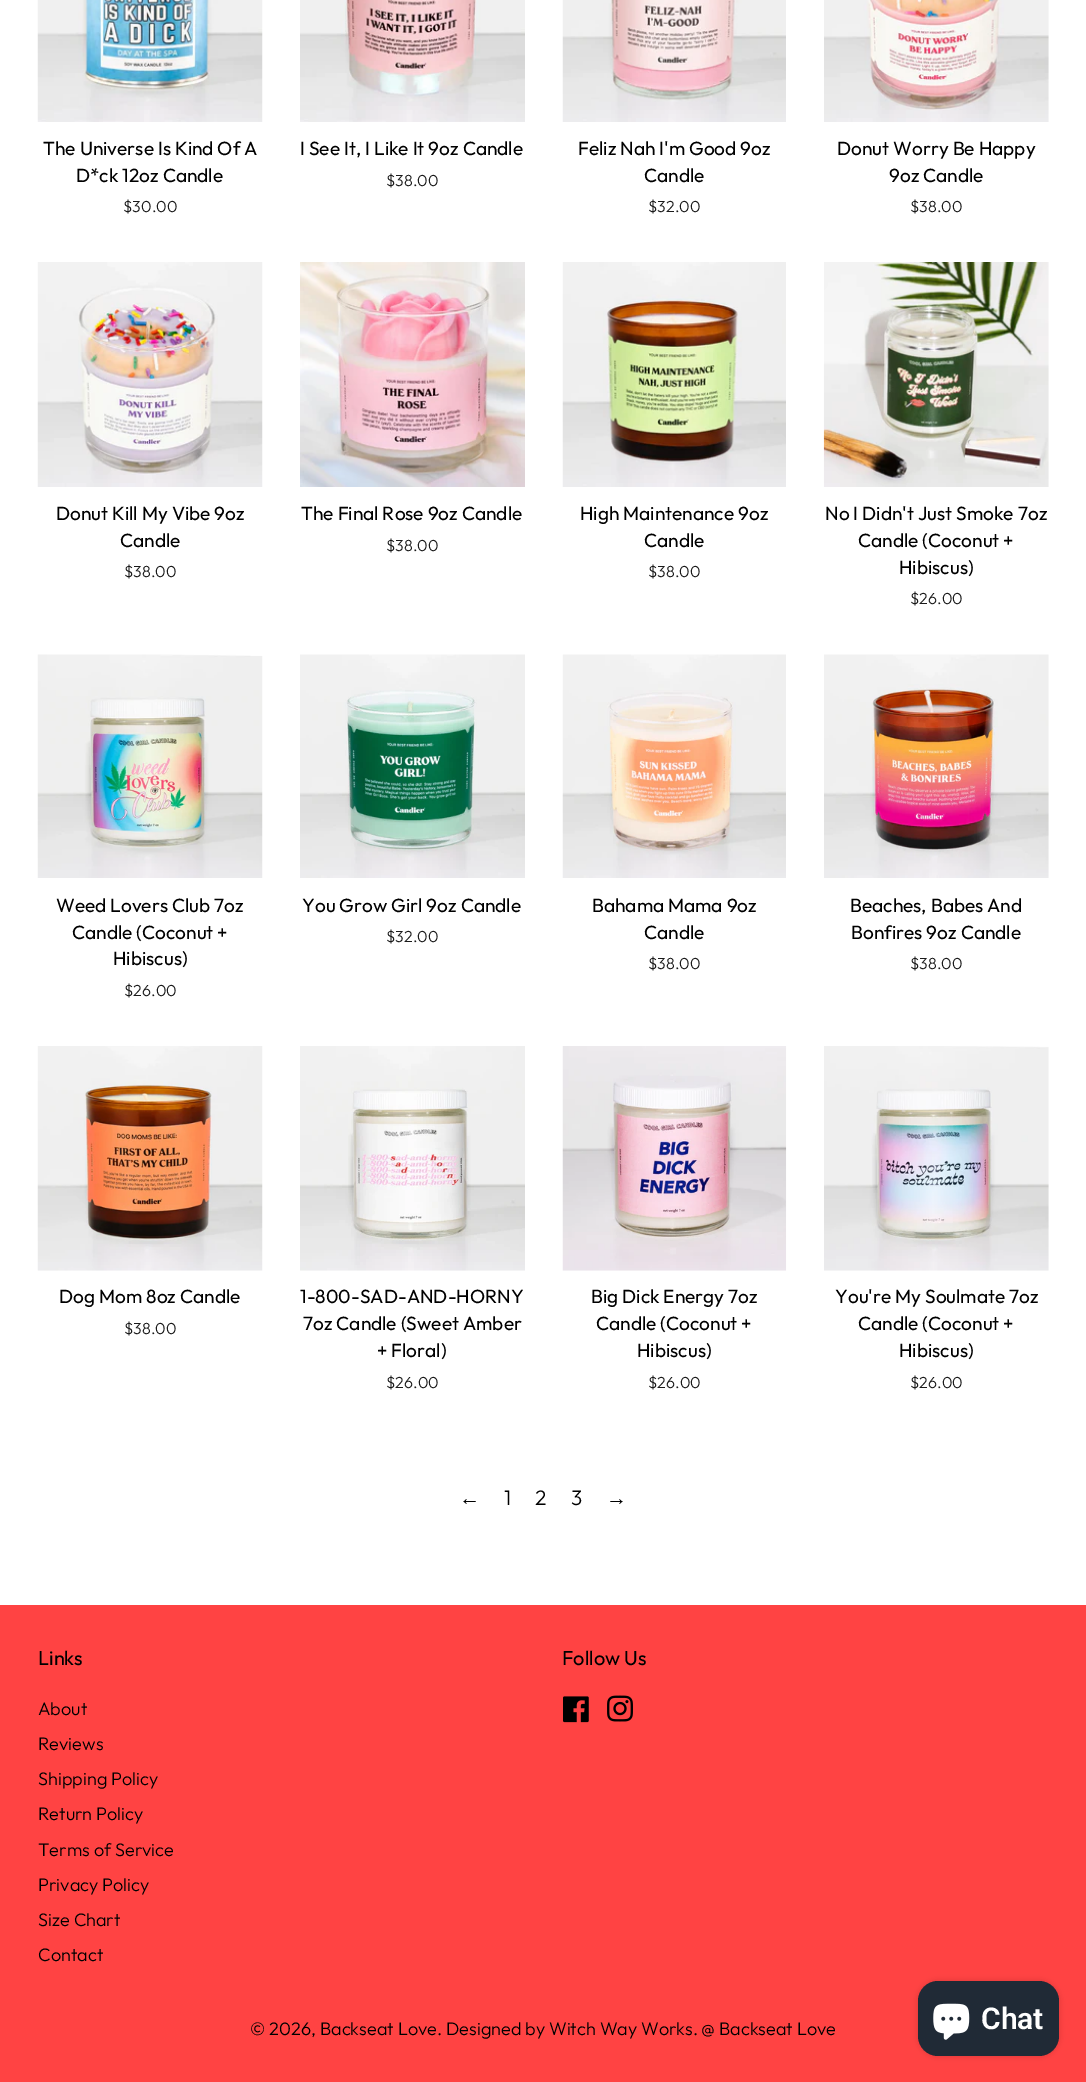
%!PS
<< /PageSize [1086 2082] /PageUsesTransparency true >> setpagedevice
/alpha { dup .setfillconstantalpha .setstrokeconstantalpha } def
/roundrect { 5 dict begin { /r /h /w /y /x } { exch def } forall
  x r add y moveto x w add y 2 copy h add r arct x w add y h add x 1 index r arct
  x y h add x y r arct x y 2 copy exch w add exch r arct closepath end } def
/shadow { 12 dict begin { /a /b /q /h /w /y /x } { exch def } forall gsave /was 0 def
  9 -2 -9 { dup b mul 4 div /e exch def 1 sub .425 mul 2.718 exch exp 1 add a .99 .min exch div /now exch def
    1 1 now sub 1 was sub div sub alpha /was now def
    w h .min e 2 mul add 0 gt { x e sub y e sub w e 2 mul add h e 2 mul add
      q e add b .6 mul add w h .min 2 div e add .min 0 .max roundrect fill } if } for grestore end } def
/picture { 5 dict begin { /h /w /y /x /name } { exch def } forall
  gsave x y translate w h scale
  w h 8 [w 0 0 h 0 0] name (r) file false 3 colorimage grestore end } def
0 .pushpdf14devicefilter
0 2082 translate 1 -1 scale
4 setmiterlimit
1 setgray
0 0 1086 2082 rectfill
(img1.rgb) 37 0 226 122 picture
/Outfit-Regular [19.1 0 0 -19.1 0 0] selectfont
0 setgray
43 155 moveto (The Universe Is Kind Of A) show
76 182 moveto (D*ck 12oz Candle) show
/Outfit-Light [16 0 0 -16 0 0] selectfont
0.102 setgray
123 212 moveto ($30.00) show
(img2.rgb) 300 0 225 122 picture
/Outfit-Regular [19.1 0 0 -19.1 0 0] selectfont
0 setgray
300 155 moveto (I See It, I Like It 9oz Candle) show
/Outfit-Light [16 0 0 -16 0 0] selectfont
0.102 setgray
386 186 moveto ($38.00) show
(img3.rgb) 562 0 224 122 picture
/Outfit-Regular [19.1 0 0 -19.1 0 0] selectfont
0 setgray
578 155 moveto (Feliz Nah I'm Good 9oz) show
644 182 moveto (Candle) show
/Outfit-Light [16 0 0 -16 0 0] selectfont
0.102 setgray
648 212 moveto ($32.00) show
(img4.rgb) 824 0 225 122 picture
/Outfit-Regular [19.1 0 0 -19.1 0 0] selectfont
0 setgray
837 155 moveto (Donut Worry Be Happy) show
889 182 moveto (9oz Candle) show
/Outfit-Light [16 0 0 -16 0 0] selectfont
0.102 setgray
910 212 moveto ($38.00) show
(img5.rgb) 37 262 226 225 picture
/Outfit-Regular [19.1 0 0 -19.1 0 0] selectfont
0 setgray
56 520 moveto (Donut Kill My Vibe 9oz) show
120 547 moveto (Candle) show
/Outfit-Light [16 0 0 -16 0 0] selectfont
0.102 setgray
124 577 moveto ($38.00) show
(img6.rgb) 300 262 225 225 picture
/Outfit-Regular [19.1 0 0 -19.1 0 0] selectfont
0 setgray
301 520 moveto (The Final Rose 9oz Candle) show
/Outfit-Light [16 0 0 -16 0 0] selectfont
0.102 setgray
386 551 moveto ($38.00) show
(img7.rgb) 562 262 224 225 picture
/Outfit-Regular [19.1 0 0 -19.1 0 0] selectfont
0 setgray
580 520 moveto (High Maintenance 9oz) show
644 547 moveto (Candle) show
/Outfit-Light [16 0 0 -16 0 0] selectfont
0.102 setgray
648 577 moveto ($38.00) show
(img8.rgb) 823 262 226 225 picture
/Outfit-Regular [19.1 0 0 -19.1 0 0] selectfont
0 setgray
825 520 moveto (No I Didn't Just Smoke 7oz) show
858 547 moveto (Candle \(Coconut +) show
899 574 moveto (Hibiscus\)) show
/Outfit-Light [16 0 0 -16 0 0] selectfont
0.102 setgray
910 604 moveto ($26.00) show
(img9.rgb) 37 654 226 224 picture
/Outfit-Regular [19.1 0 0 -19.1 0 0] selectfont
0 setgray
56 912 moveto (Weed Lovers Club 7oz) show
72 939 moveto (Candle \(Coconut +) show
113 965 moveto (Hibiscus\)) show
/Outfit-Light [16 0 0 -16 0 0] selectfont
0.102 setgray
124 996 moveto ($26.00) show
(img10.rgb) 300 654 225 224 picture
/Outfit-Regular [19.1 0 0 -19.1 0 0] selectfont
0 setgray
302 912 moveto (You Grow Girl 9oz Candle) show
/Outfit-Light [16 0 0 -16 0 0] selectfont
0.102 setgray
386 942 moveto ($32.00) show
(img11.rgb) 562 654 224 224 picture
/Outfit-Regular [19.1 0 0 -19.1 0 0] selectfont
0 setgray
592 912 moveto (Bahama Mama 9oz) show
644 939 moveto (Candle) show
/Outfit-Light [16 0 0 -16 0 0] selectfont
0.102 setgray
648 969 moveto ($38.00) show
(img12.rgb) 824 654 225 224 picture
/Outfit-Regular [19.1 0 0 -19.1 0 0] selectfont
0 setgray
850 912 moveto (Beaches, Babes And) show
851 939 moveto (Bonfires 9oz Candle) show
/Outfit-Light [16 0 0 -16 0 0] selectfont
0.102 setgray
910 969 moveto ($38.00) show
(img13.rgb) 37 1046 226 225 picture
/Outfit-Regular [19.1 0 0 -19.1 0 0] selectfont
0 setgray
59 1303 moveto (Dog Mom 8oz Candle) show
/Outfit-Light [16 0 0 -16 0 0] selectfont
0.102 setgray
124 1334 moveto ($38.00) show
(img14.rgb) 300 1046 225 225 picture
/Outfit-Regular [19.1 0 0 -19.1 0 0] selectfont
0 setgray
300 1303 moveto (1-800-SAD-AND-HORNY) show
303 1330 moveto (7oz Candle \(Sweet Amber) show
377 1357 moveto (+ Floral\)) show
/Outfit-Light [16 0 0 -16 0 0] selectfont
0.102 setgray
386 1388 moveto ($26.00) show
(img15.rgb) 562 1046 225 225 picture
/Outfit-Regular [19.1 0 0 -19.1 0 0] selectfont
0 setgray
591 1303 moveto (Big Dick Energy 7oz) show
596 1330 moveto (Candle \(Coconut +) show
637 1357 moveto (Hibiscus\)) show
/Outfit-Light [16 0 0 -16 0 0] selectfont
0.102 setgray
648 1388 moveto ($26.00) show
(img16.rgb) 824 1046 225 225 picture
/Outfit-Regular [19.1 0 0 -19.1 0 0] selectfont
0 setgray
835 1303 moveto (You're My Soulmate 7oz) show
858 1330 moveto (Candle \(Coconut +) show
899 1357 moveto (Hibiscus\)) show
/Outfit-Light [16 0 0 -16 0 0] selectfont
0.102 setgray
910 1388 moveto ($26.00) show
/LiberationSans-Regular [21 0 0 -21 0 0] selectfont
0 setgray
459 1505 moveto (←) show
/Outfit-Light [21 0 0 -21 0 0] selectfont
504 1505 moveto (1) show
535 1505 moveto (2) show
571 1505 moveto (3) show
/LiberationSans-Regular [21 0 0 -21 0 0] selectfont
606 1505 moveto (→) show
1 0.263 0.263 setrgbcolor
0 1605 1086 477 rectfill
/Outfit-Regular [20 0 0 -20 0 0] selectfont
0 setgray
38 1665 moveto (Links) show
/Outfit-Light [18.1 0 0 -18.1 0 0] selectfont
38 1715 moveto (About) show
38 1750 moveto (Reviews) show
38 1785 moveto (Shipping Policy) show
38 1820 moveto (Return Policy) show
38 1856 moveto (Terms of Service) show
38 1891 moveto (Privacy Policy) show
38 1926 moveto (Size Chart) show
38 1961 moveto (Contact) show
/Outfit-Regular [20 0 0 -20 0 0] selectfont
562 1665 moveto (Follow Us) show
(img17.rgb) 563 1696 26 27 picture
(img18.rgb) 607 1695 26 27 picture
/Outfit-Light [18.1 0 0 -18.1 0 0] selectfont
250 2035 moveto (© 2026, Backseat Love. Designed by Witch Way Works.) show
701 2035 moveto (@ Backseat Love) show
918 1981 141 75 20 3 0.15 shadow
0.125 0.165 0.212 setrgbcolor
918 1981 141 75 20 roundrect fill
(img19.rgb) 933 2003 37 37 picture
/Roboto-SemiBold [30 0 0 -30 0 0] selectfont
1 setgray
981 2029 moveto (Chat) show
.poppdf14devicefilter showpage
